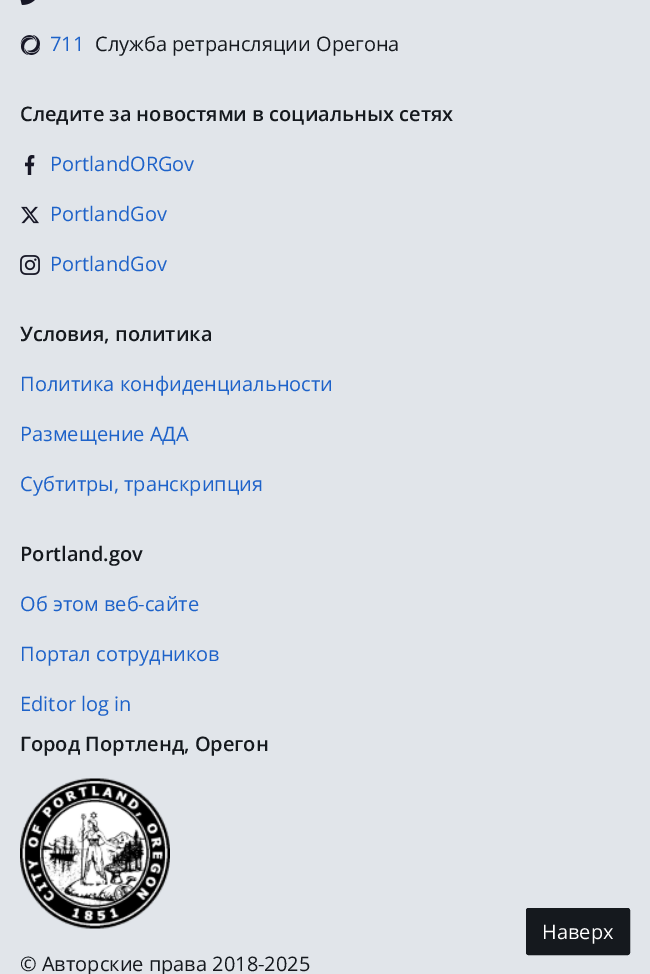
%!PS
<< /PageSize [650 974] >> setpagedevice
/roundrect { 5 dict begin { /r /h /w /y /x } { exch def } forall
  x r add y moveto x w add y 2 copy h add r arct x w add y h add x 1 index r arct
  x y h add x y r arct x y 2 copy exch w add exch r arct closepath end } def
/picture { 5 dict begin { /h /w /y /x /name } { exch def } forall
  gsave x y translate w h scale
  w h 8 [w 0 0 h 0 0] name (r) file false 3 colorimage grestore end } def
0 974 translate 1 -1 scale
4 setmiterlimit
0.882 0.898 0.918 setrgbcolor
0 0 650 974 rectfill
(img1.rgb) 20 0 15 5 picture
(img2.rgb) 20 35 20 20 picture
/OpenSans-Regular [20 0 0 -20 0 0] selectfont
0.114 0.384 0.788 setrgbcolor
50 51 moveto (711) show
0.082 0.098 0.118 setrgbcolor
95 51 moveto (Служба ретрансляции Орегона) show
/OpenSans-SemiBold [20 0 0 -20 0 0] selectfont
20 121 moveto (Следите за новостями в социальных сетях) show
(img3.rgb) 25 155 10 20 picture
/OpenSans-Regular [20 0 0 -20 0 0] selectfont
0.114 0.384 0.788 setrgbcolor
50 171 moveto (PortlandORGov) show
(img4.rgb) 21 206 18 18 picture
50 221 moveto (PortlandGov) show
(img5.rgb) 20 255 20 20 picture
50 271 moveto (PortlandGov) show
/OpenSans-SemiBold [20 0 0 -20 0 0] selectfont
0.082 0.098 0.118 setrgbcolor
20 341 moveto (Условия, политика) show
/OpenSans-Regular [20 0 0 -20 0 0] selectfont
0.114 0.384 0.788 setrgbcolor
20 391 moveto (Политика конфиденциальности) show
20 441 moveto (Размещение АДА) show
20 491 moveto (Субтитры, транскрипция) show
/OpenSans-SemiBold [20 0 0 -20 0 0] selectfont
0.082 0.098 0.118 setrgbcolor
20 561 moveto (Portland.gov) show
/OpenSans-Regular [20 0 0 -20 0 0] selectfont
0.114 0.384 0.788 setrgbcolor
20 611 moveto (Об этом веб-сайте) show
20 661 moveto (Портал сотрудников) show
20 711 moveto (Editor log in) show
/OpenSans-SemiBold [20 0 0 -20 0 0] selectfont
0.082 0.098 0.118 setrgbcolor
20 751 moveto (Город Портленд, Орегон) show
(img6.rgb) 20 778 150 151 picture
/OpenSans-Regular [20 0 0 -20 0 0] selectfont
20 971 moveto (© Авторские права 2018-2025) show
526.5 908.5 103 46 2 roundrect gsave fill grestore
stroke
1 setgray
542 939 moveto (Наверх) show
showpage
